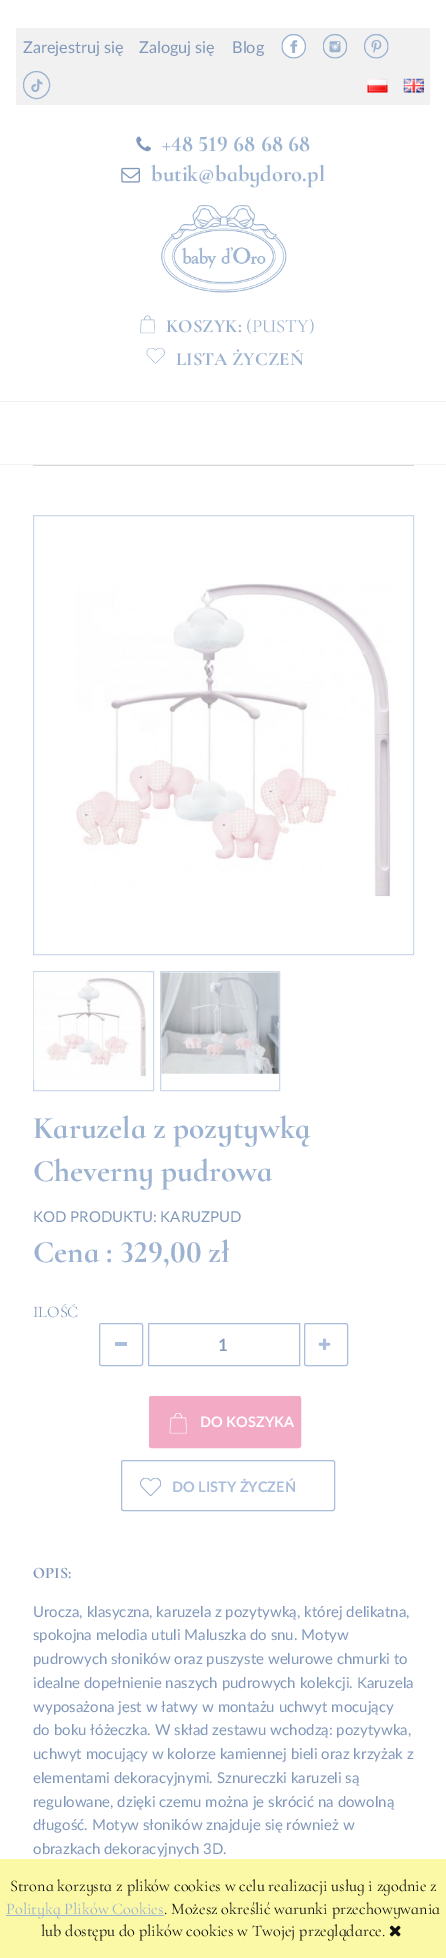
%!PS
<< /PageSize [446 1958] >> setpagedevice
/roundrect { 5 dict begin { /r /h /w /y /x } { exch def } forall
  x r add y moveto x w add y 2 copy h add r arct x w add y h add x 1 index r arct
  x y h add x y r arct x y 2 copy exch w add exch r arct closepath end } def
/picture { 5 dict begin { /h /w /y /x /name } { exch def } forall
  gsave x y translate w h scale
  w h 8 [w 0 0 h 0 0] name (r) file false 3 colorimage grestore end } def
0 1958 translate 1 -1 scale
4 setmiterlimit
1 setgray
0 0 446 1958 rectfill
0.945 setgray
16 28 414 77 rectfill
/Lato-Regular [16.25 0 0 -16.25 0 0] selectfont
0.506 0.596 0.729 setrgbcolor
23 53 moveto (Zarejestruj się) show
139 53 moveto (Zaloguj się) show
232 53 moveto (Blog) show
(img1.rgb) 281 34 25 25 picture
(img2.rgb) 323 34 25 25 picture
(img3.rgb) 364 34 25 25 picture
(img4.rgb) 31 79 12 13 picture
0.616 0.698 0.808 setrgbcolor
23.5 71.5 26 27 13 roundrect stroke
(img5.rgb) 367 78 21 15 picture
(img6.rgb) 403 78 21 15 picture
(img7.rgb) 136 136 15 16 picture
/CormorantInfant-Bold [22.5 0 0 -22.5 0 0] selectfont
0.608 0.698 0.816 setrgbcolor
162 151 moveto (+48 519 68 68 68) show
(img8.rgb) 121 167 19 16 picture
151 181 moveto (butik@babydoro.pl) show
(img9.rgb) 161 205 126 88 picture
(img10.rgb) 140 315 15 19 picture
/CormorantInfant-Bold [18.75 0 0 -18.75 0 0] selectfont
166 332 moveto (KOSZYK:) show
/CormorantInfant-Regular [18.75 0 0 -18.75 0 0] selectfont
246 332 moveto (\(PUSTY\)) show
(img11.rgb) 146 348 19 16 picture
/CormorantInfant-Bold [18.75 0 0 -18.75 0 0] selectfont
176 365 moveto (LISTA ŻYCZEŃ) show
0.949 setgray
0 401 446 1 rectfill
0 464 446 1 rectfill
0.847 setgray
33 465 381 1 rectfill
0.804 0.851 0.91 setrgbcolor
33.5 515.5 380 439 rectstroke
(img12.rgb) 76 583 315 314 picture
33.5 971.5 120 119 rectstroke
(img13.rgb) 33 972 114 108 picture
160.5 971.5 119 119 rectstroke
(img14.rgb) 161 972 118 102 picture
/CormorantInfant-Bold [31.25 0 0 -31.25 0 0] selectfont
0.608 0.698 0.816 setrgbcolor
33 1138 moveto (Karuzela z pozytywką) show
33 1181 moveto (Cheverny pudrowa) show
/Lato-Regular [15 0 0 -15 0 0] selectfont
0.506 0.596 0.729 setrgbcolor
33 1222 moveto (KOD PRODUKTU: KARUZPUD) show
/CormorantInfant-Bold [31.25 0 0 -31.25 0 0] selectfont
0.608 0.698 0.816 setrgbcolor
33 1262 moveto (Cena : 329,00 zł) show
/CormorantInfant-Regular [16.25 0 0 -16.25 0 0] selectfont
0.506 0.596 0.729 setrgbcolor
33 1317 moveto (ILOŚĆ) show
0.667 0.741 0.859 setrgbcolor
99.5 1323.5 43 42 2 roundrect stroke
115 1342 12 4 rectfill
148.5 1323.5 151 42 rectstroke
/Lato-SemiBold [17 0 0 -17 0 0] selectfont
0.506 0.596 0.729 setrgbcolor
218 1351 moveto (1) show
0.667 0.741 0.859 setrgbcolor
304.5 1323.5 43 42 2 roundrect stroke
(img15.rgb) 318 1338 13 12 picture
0.953 0.667 0.773 setrgbcolor
149.5 1396.5 151 51 2 roundrect gsave fill grestore
stroke
(img16.rgb) 169 1413 18 21 picture
/Lato-Bold [14.5 0 0 -14.5 0 0] selectfont
1 setgray
200 1427 moveto (DO KOSZYKA) show
0.667 0.741 0.859 setrgbcolor
121.5 1460.5 213 50 2 roundrect stroke
(img17.rgb) 140 1477 21 19 picture
172 1492 moveto (DO LISTY ŻYCZEŃ) show
/CormorantUpright-Bold [16 0 0 -16 0 0] selectfont
0.506 0.596 0.729 setrgbcolor
33 1578 moveto (OPIS:) show
/Lato-Regular [15 0 0 -15 0 0] selectfont
33 1617 moveto (Urocza, klasyczna, karuzela z pozytywką, której delikatna,) show
33 1640 moveto (spokojna melodia utuli Maluszka do snu. Motyw) show
33 1664 moveto (pudrowych słoników oraz puszyste welurowe chmurki to) show
33 1688 moveto (idealne dopełnienie naszych pudrowych kolekcji. Karuzela) show
33 1712 moveto (wyposażona jest w łatwy w montażu uchwyt mocujący) show
33 1735 moveto (do boku łóżeczka. W skład zestawu wchodzą: pozytywka,) show
33 1759 moveto (uchwyt mocujący w kolorze kamiennej bieli oraz krzyżak z) show
33 1783 moveto (elementami dekoracyjnymi. Sznureczki karuzeli są) show
33 1807 moveto (regulowane, dzięki czemu można je skrócić na dowolną) show
33 1830 moveto (długość. Motyw słoników znajduje się również w) show
33 1854 moveto (obrazkach dekoracyjnych 3D.) show
0.988 0.976 0.651 setrgbcolor
0 1859 446 99 rectfill
/CormorantInfant-Regular [16.25 0 0 -16.25 0 0] selectfont
0.067 setgray
10 1891 moveto (Strona korzysta z plików cookies w celu realizacji usług i zgodnie z) show
0.608 0.698 0.816 setrgbcolor
6 1915 158 1 rectfill
6 1914 moveto (Polityką Plików Cookies) show
0.067 setgray
164 1914 moveto (. Możesz określić warunki przechowywania) show
41 1936 moveto (lub dostępu do plików cookies w Twojej przeglądarce.) show
(img18.rgb) 389 1925 12 12 picture
showpage
